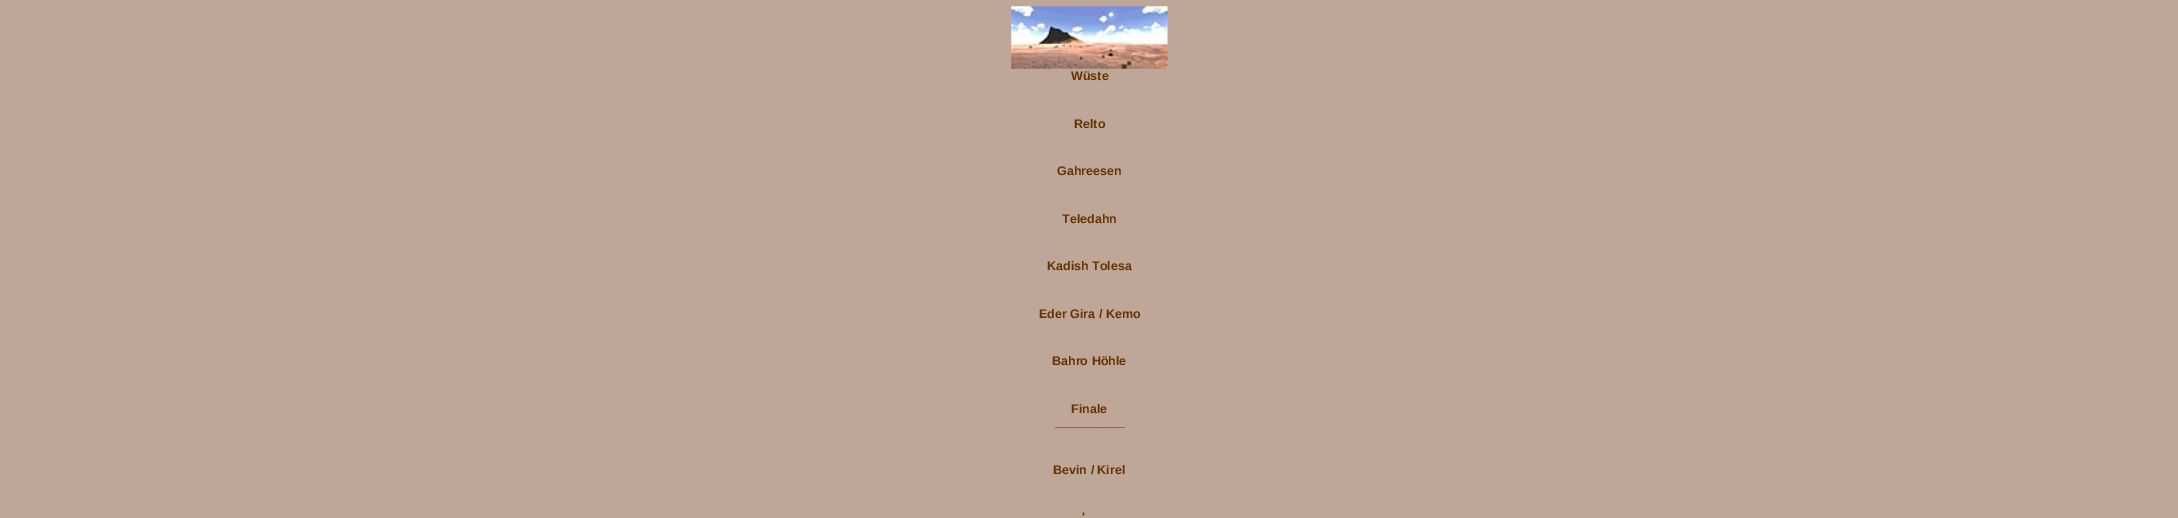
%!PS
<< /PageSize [2178 518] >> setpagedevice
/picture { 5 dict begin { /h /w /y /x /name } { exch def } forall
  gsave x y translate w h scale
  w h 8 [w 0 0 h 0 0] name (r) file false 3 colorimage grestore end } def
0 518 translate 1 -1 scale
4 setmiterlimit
0.745 0.655 0.6 setrgbcolor
0 0 2178 518 rectfill
(img1.rgb) 1011 6 157 63 picture
/LiberationSans-Bold [12.5 0 0 -12.5 0 0] selectfont
0.4 0.2 0 setrgbcolor
1071 80 moveto (Wüste) show
1074 128 moveto (Relto) show
1057 175 moveto (Gahreesen) show
1062 223 moveto (Teledahn) show
1047 270 moveto (Kadish Tolesa) show
1039 318 moveto (Eder Gira / Kemo) show
1052 365 moveto (Bahro Höhle) show
1071 413 moveto (Finale) show
1055 426 moveto (__________) show
1053 474 moveto (Bevin / Kirel) show
1082 521 moveto (') show
showpage
